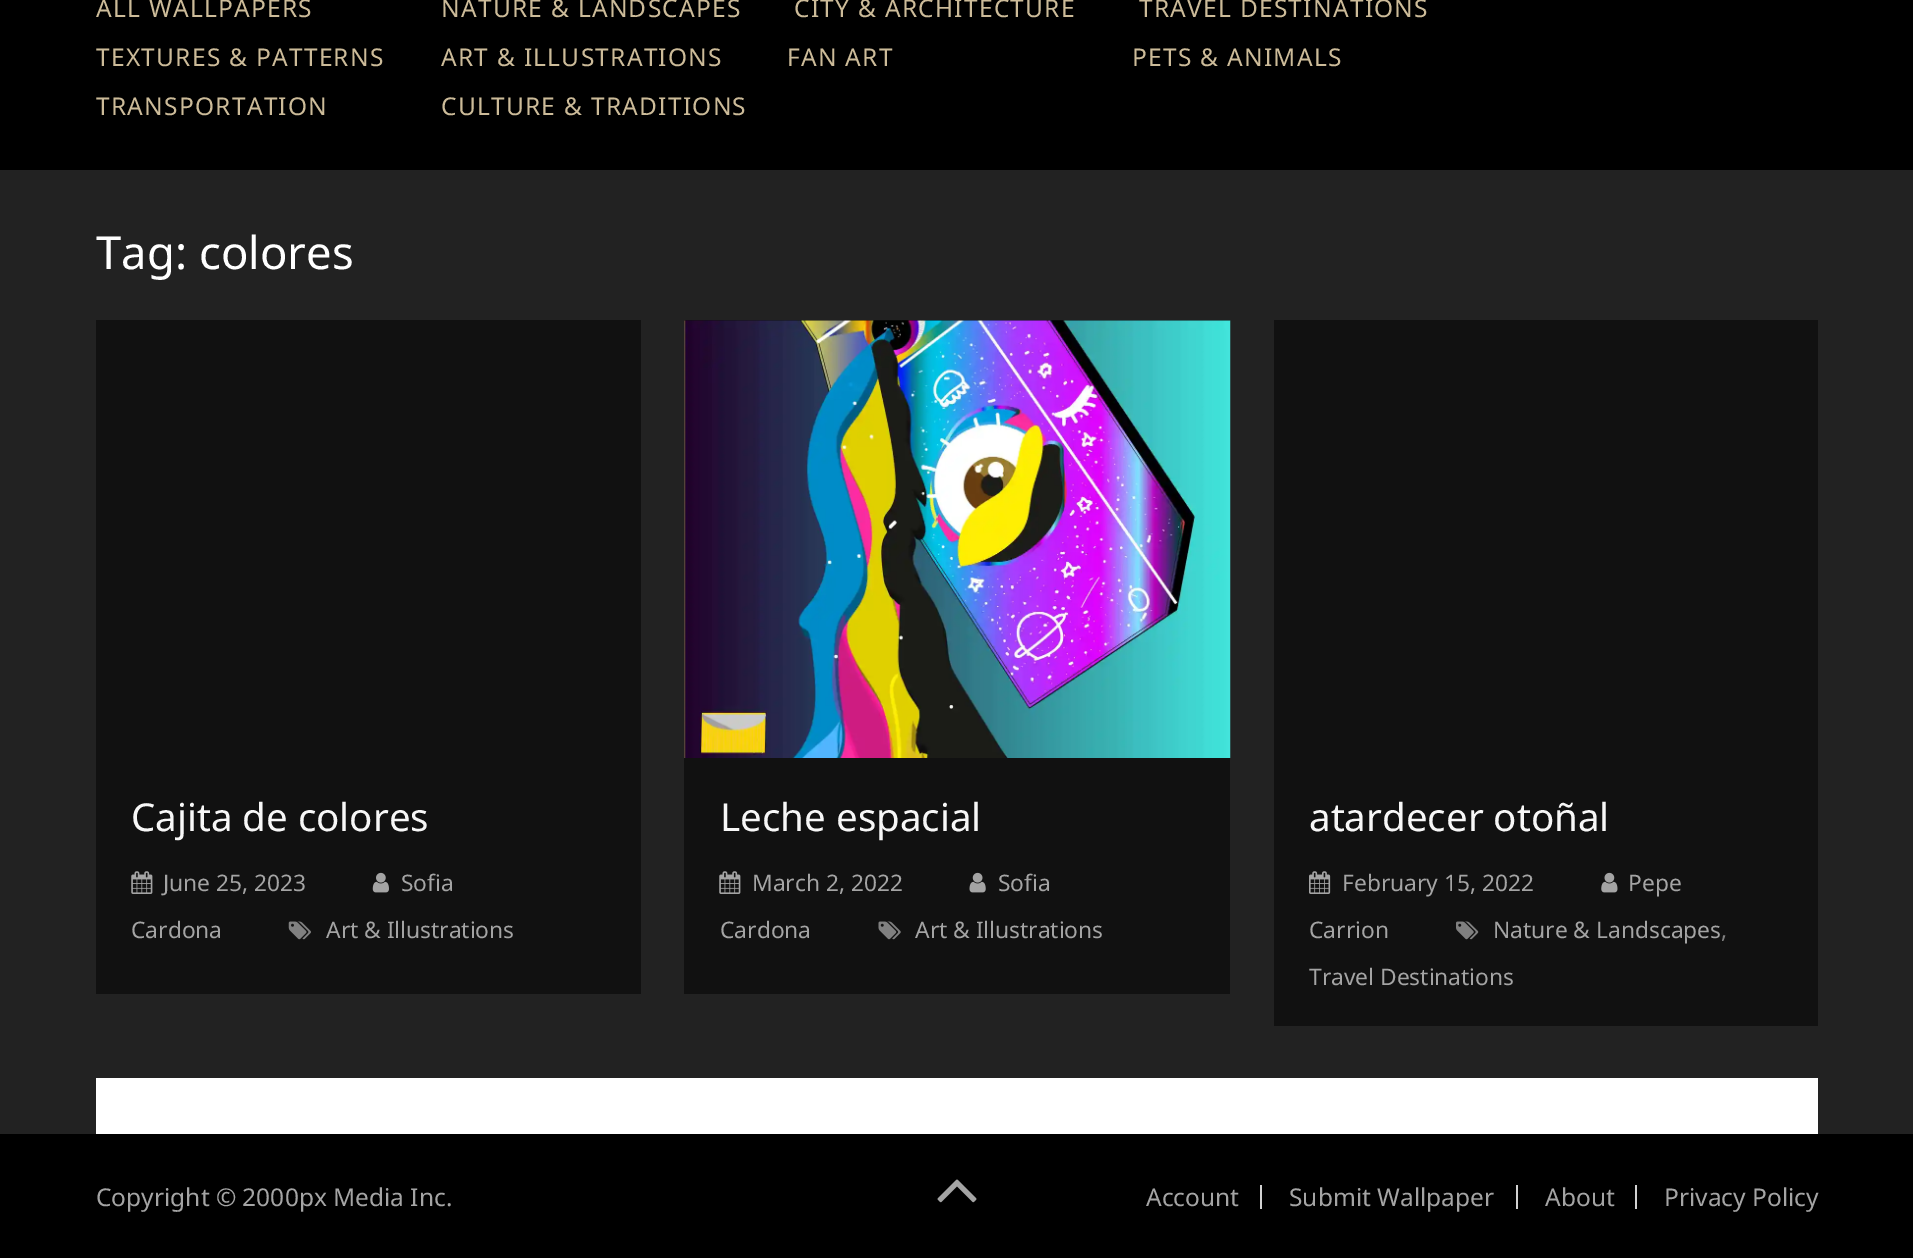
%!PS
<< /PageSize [1913 1258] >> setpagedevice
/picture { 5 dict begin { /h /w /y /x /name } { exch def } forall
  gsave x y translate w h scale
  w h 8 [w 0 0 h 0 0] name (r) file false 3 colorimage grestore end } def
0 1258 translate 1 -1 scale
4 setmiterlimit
0.133 setgray
0 0 1913 1258 rectfill
0 setgray
0 0 1913 170 rectfill
/NotoSans-Regular [24.5 0 0 -24.5 0 0] selectfont
0.8 0.733 0.6 setrgbcolor
96 17 moveto 1.25 0 (ALL WALLPAPERS) ashow
441 17 moveto 1.25 0 (NATURE & LANDSCAPES) ashow
794 17 moveto 1.25 0 (CITY & ARCHITECTURE) ashow
1139 17 moveto 1.25 0 (TRAVEL DESTINATIONS) ashow
96 66 moveto 1.25 0 (TEXTURES & PATTERNS) ashow
441 66 moveto 1.25 0 (ART & ILLUSTRATIONS) ashow
787 66 moveto 1.25 0 (FAN ART) ashow
1132 66 moveto 1.25 0 (PETS & ANIMALS) ashow
96 115 moveto 1.25 0 (TRANSPORTATION) ashow
441 115 moveto 1.25 0 (CULTURE & TRADITIONS) ashow
/NotoSans-Regular [45.5 0 0 -45.5 0 0] selectfont
1 setgray
96 269 moveto (Tag: colores) show
0.067 setgray
96 320 545 674 rectfill
/NotoSans-Regular [38.5 0 0 -38.5 0 0] selectfont
0.969 setgray
131 831 moveto (Cajita de colores) show
(img1.rgb) 372 872 17 21 picture
/NotoSans-Regular [22.75 0 0 -22.75 0 0] selectfont
0.643 setgray
401 891 moveto (Sofia) show
131 938 moveto (Cardona) show
(img2.rgb) 131 871 22 23 picture
163 891 moveto (June 25, 2023) show
(img3.rgb) 288 921 23 19 picture
326 938 moveto (Art & Illustrations) show
0.067 setgray
684 320 546 674 rectfill
(img4.rgb) 684 320 547 438 picture
/NotoSans-Regular [38.5 0 0 -38.5 0 0] selectfont
0.969 setgray
720 831 moveto (Leche espacial) show
(img5.rgb) 969 872 17 21 picture
/NotoSans-Regular [22.75 0 0 -22.75 0 0] selectfont
0.643 setgray
998 891 moveto (Sofia) show
720 938 moveto (Cardona) show
(img2.rgb) 719 871 22 23 picture
752 891 moveto (March 2, 2022) show
(img6.rgb) 878 921 23 19 picture
915 938 moveto (Art & Illustrations) show
0.067 setgray
1274 320 544 706 rectfill
/NotoSans-Regular [38.5 0 0 -38.5 0 0] selectfont
0.969 setgray
1309 831 moveto (atardecer otoñal) show
(img7.rgb) 1309 871 22 23 picture
/NotoSans-Regular [22.75 0 0 -22.75 0 0] selectfont
0.643 setgray
1342 891 moveto (February 15, 2022) show
(img8.rgb) 1601 872 17 21 picture
1628 891 moveto (Pepe) show
1309 938 moveto (Carrion) show
(img9.rgb) 1456 921 23 19 picture
1493 938 moveto (Nature & Landscapes) show
0.502 setgray
1721 938 moveto (,) show
0.643 setgray
1309 985 moveto (Travel Destinations) show
1 setgray
96 1078 1722 56 rectfill
0 setgray
0 1134 1913 124 rectfill
/NotoSans-Regular [24.5 0 0 -24.5 0 0] selectfont
0.643 setgray
96 1206 moveto (Copyright © 2000px Media Inc.) show
(img10.rgb) 937 1179 40 24 picture
0.824 setgray
1260 1185 2 24 rectfill
0.643 setgray
1146 1206 moveto (Account) show
0.824 setgray
1516 1185 2 24 rectfill
0.643 setgray
1289 1206 moveto (Submit Wallpaper) show
0.824 setgray
1635 1185 2 24 rectfill
0.643 setgray
1545 1206 moveto (About) show
1664 1206 moveto (Privacy Policy) show
showpage
